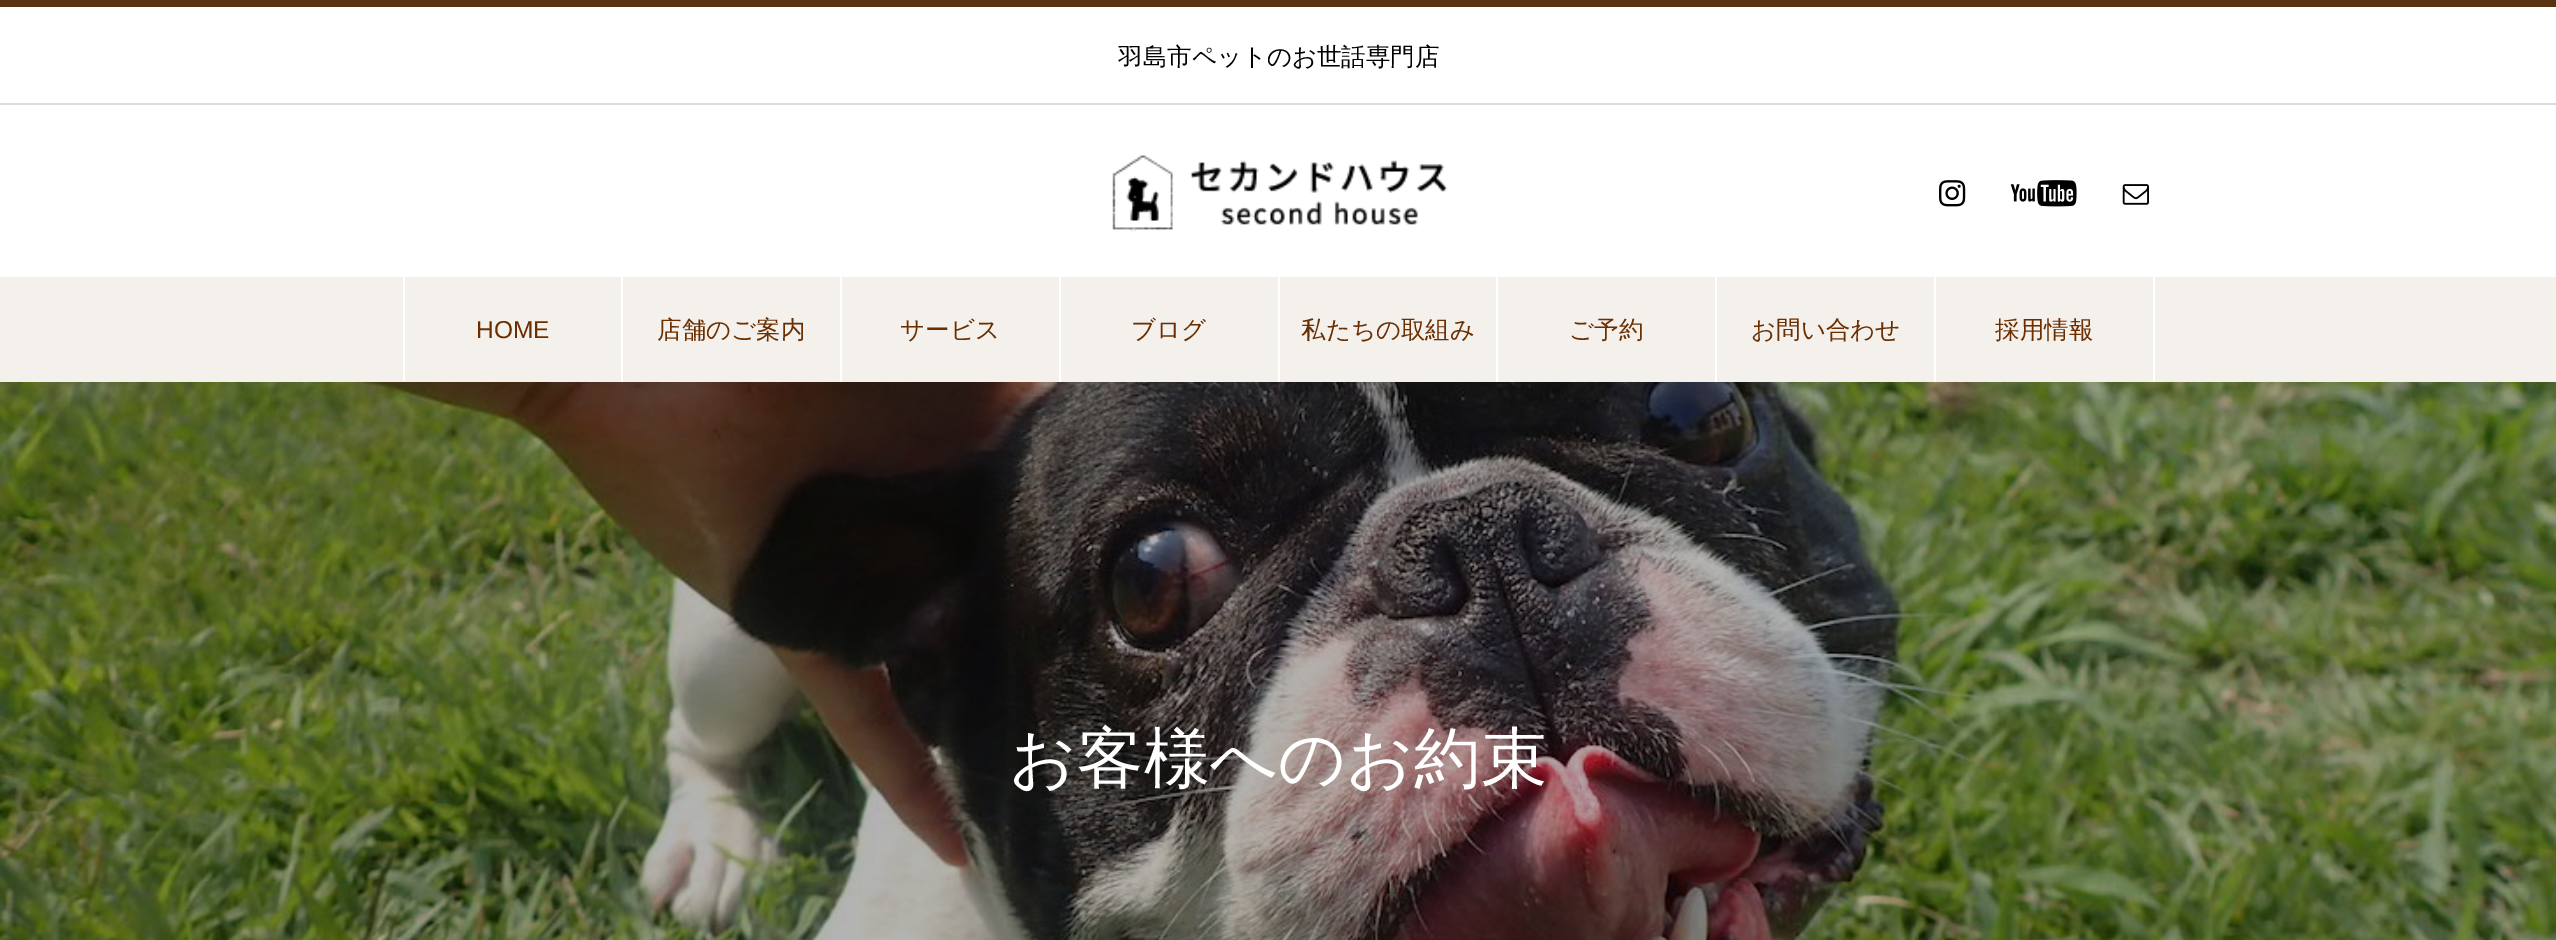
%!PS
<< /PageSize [2556 940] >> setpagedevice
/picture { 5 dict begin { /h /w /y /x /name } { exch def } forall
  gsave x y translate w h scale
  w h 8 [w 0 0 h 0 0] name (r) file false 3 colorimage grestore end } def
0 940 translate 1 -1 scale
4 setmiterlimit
1 setgray
0 0 2556 940 rectfill
0.341 0.2 0.071 setrgbcolor
0 0 2556 7 rectfill
0.867 setgray
0 103 2556 2 rectfill
/WenQuanYiZenHei-Medium [24.5 0 0 -24.5 0 0] selectfont
0 setgray
1118 65 moveto (羽島市ペットのお世話専門店) show
(img1.rgb) 1112 154 336 78 picture
(img2.rgb) 1939 180 27 27 picture
(img3.rgb) 2010 180 67 27 picture
(img4.rgb) 2122 184 27 21 picture
0.957 0.941 0.925 setrgbcolor
0 277 2556 105 rectfill
1 setgray
403 277 2 105 rectfill
621 277 2 105 rectfill
/LiberationSans-Regular [24.5 0 0 -24.5 0 0] selectfont
0.42 0.18 0 setrgbcolor
476 338 moveto (HOME) show
1 setgray
840 277 2 105 rectfill
/WenQuanYiZenHei-Medium [24.5 0 0 -24.5 0 0] selectfont
0.42 0.18 0 setrgbcolor
657 338 moveto (店舗のご案内) show
1 setgray
1059 277 2 105 rectfill
0.42 0.18 0 setrgbcolor
900 338 moveto (サービス) show
1 setgray
1278 277 2 105 rectfill
0.42 0.18 0 setrgbcolor
1131 338 moveto (ブログ) show
1 setgray
1496 277 2 105 rectfill
0.42 0.18 0 setrgbcolor
1301 338 moveto (私たちの取組み) show
1 setgray
1715 277 2 105 rectfill
0.42 0.18 0 setrgbcolor
1569 338 moveto (ご予約) show
1 setgray
1934 277 2 105 rectfill
0.42 0.18 0 setrgbcolor
1751 338 moveto (お問い合わせ) show
1 setgray
2153 277 2 105 rectfill
0.42 0.18 0 setrgbcolor
1995 338 moveto (採用情報) show
(img5.rgb) 0 382 2556 558 picture
/WenQuanYiZenHei-Medium [66.5 0 0 -66.5 0 0] selectfont
1 setgray
1009 781 moveto (お客様へのお約束) show
showpage
